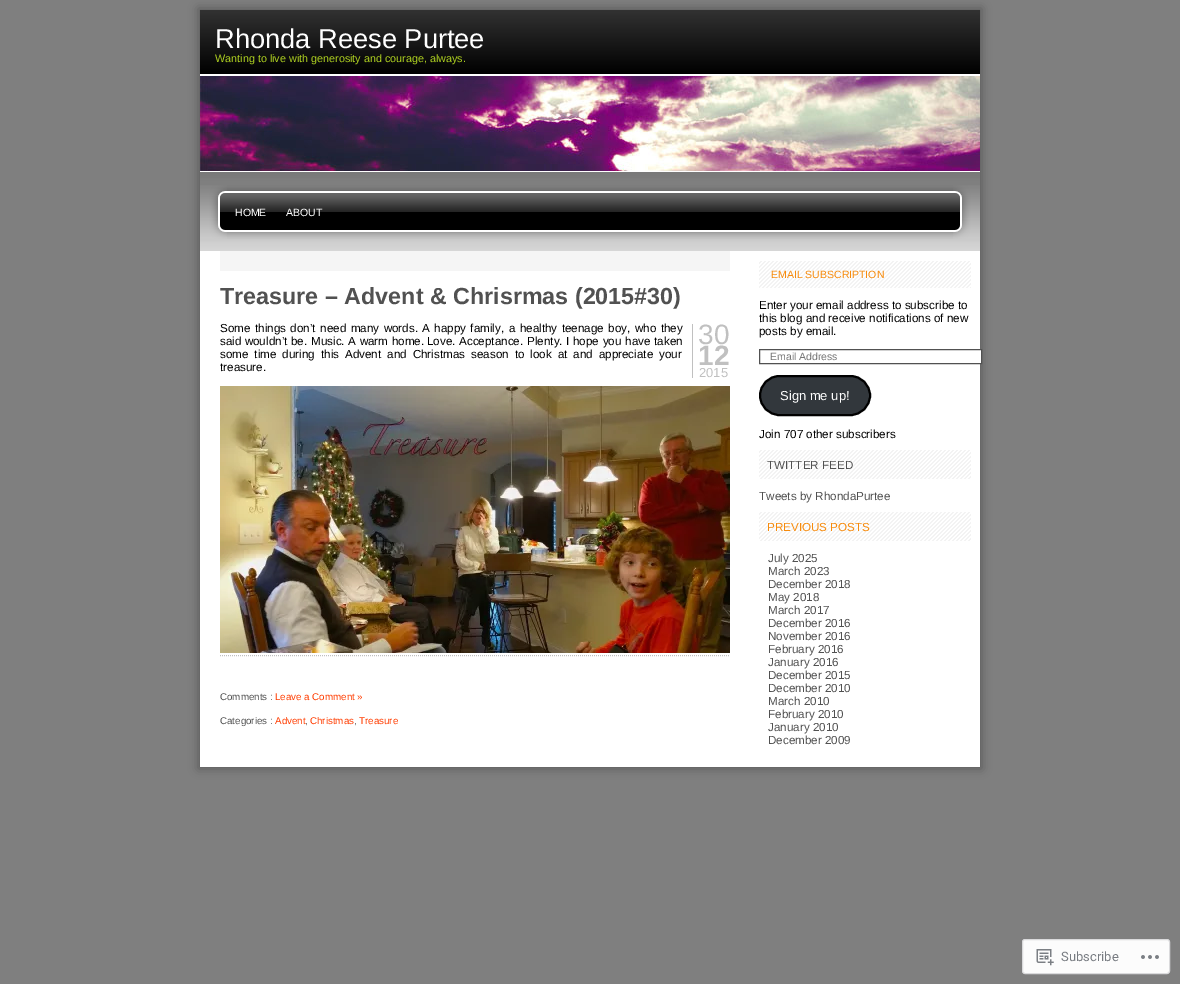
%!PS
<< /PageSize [1180 984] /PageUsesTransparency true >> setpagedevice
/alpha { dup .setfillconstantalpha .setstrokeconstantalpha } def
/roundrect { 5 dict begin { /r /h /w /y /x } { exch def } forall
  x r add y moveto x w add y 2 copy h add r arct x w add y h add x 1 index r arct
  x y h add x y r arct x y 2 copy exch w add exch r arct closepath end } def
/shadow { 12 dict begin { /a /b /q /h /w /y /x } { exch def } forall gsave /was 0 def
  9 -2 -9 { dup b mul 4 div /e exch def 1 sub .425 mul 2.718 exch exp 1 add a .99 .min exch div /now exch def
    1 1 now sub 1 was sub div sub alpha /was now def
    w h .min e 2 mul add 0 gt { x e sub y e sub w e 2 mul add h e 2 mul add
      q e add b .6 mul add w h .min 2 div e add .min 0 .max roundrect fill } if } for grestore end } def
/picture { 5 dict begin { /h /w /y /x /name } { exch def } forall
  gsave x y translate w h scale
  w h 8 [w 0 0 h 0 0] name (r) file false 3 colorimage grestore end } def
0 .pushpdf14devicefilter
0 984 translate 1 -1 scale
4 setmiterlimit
0.498 setgray
0 0 1180 984 rectfill
0.353 setgray
198 8 784 761 0 5 1 shadow
gsave newpath 200 10 moveto 980 10 lineto 980 74 lineto 200 74 lineto closepath clip newpath
<< /ShadingType 2 /ColorSpace /DeviceRGB /Coords [590 10 590 74] /Extend [true true] /Function << /FunctionType 2 /Domain [0 1] /C0 [0.196 0.196 0.196] /C1 [0 0 0] /N 1 >> >> shfill grestore
1 setgray
200 74 780 2 rectfill
/LiberationSans-Regular [27.25 0 0 -27.25 0 0] selectfont
215 48 moveto (Rhonda Reese Purtee) show
/LiberationSans-Regular [10.8 0 0 -10.8 0 0] selectfont
0.678 0.812 0.125 setrgbcolor
215 62 moveto (Wanting to live with generosity and courage, always.) show
(img1.rgb) 200 76 780 95 picture
1 setgray
200 251 780 516 rectfill
(img2.rgb) 200 172 780 79 picture
200 171 780 1 rectfill
(img3.rgb) 200 185 27 54 picture
/LiberationSans-Regular [10.5 0 0 -10.5 0 0] selectfont
235 216 moveto (HOME) show
286 216 moveto (ABOUT) show
(img4.rgb) 953 185 27 54 picture
0.961 setgray
220 251 510 20 rectfill
/LiberationSans-Bold [23.3 0 0 -23.3 0 0] selectfont
0.318 setgray
220 304 moveto (Treasure – Advent & Chrisrmas \(2015#30\)) show
/LiberationSans-Regular [11.65 0 0 -11.65 0 0] selectfont
0 setgray
220 332 moveto 1.25 0 32 (Some things don’t need many words.) widthshow
422 332 moveto 1.25 0 32 (A happy family, a healthy teenage boy, who they) widthshow
220 345 moveto (said wouldn’t be.) show
311 345 moveto (Music.) show
348 345 moveto 0.5 0 32 (A warm home.) widthshow
427 345 moveto (Love.) show
459 345 moveto (Acceptance.) show
527 345 moveto (Plenty.) show
566 345 moveto 0.5 0 32 (I hope you have taken) widthshow
220 358 moveto 2.75 0 32 (some time during this Advent and Christmas season to look at and appreciate your) widthshow
220 371 moveto (treasure.) show
(img5.rgb) 220 386 510 267 picture
0.753 setgray
[1 1] 0 setdash
newpath 220 655.5 moveto 730 655.5 lineto stroke
692 324 1 54 rectfill
/LiberationSans-Regular [28 0 0 -28 0 0] selectfont
698 344 moveto (30) show
/LiberationSans-Bold [28 0 0 -28 0 0] selectfont
698 365 moveto (12) show
/LiberationSans-Regular [13 0 0 -13 0 0] selectfont
699 377 moveto (2015) show
/LiberationSans-Regular [9.75 0 0 -9.75 0 0] selectfont
0.318 setgray
220 700 moveto (Comments :) show
1 0.235 0 setrgbcolor
275 700 moveto (Leave a Comment ») show
0.318 setgray
220 724 moveto (Categories :) show
1 0.235 0 setrgbcolor
275 724 moveto (Advent) show
0.318 setgray
305 724 moveto (,) show
1 0.235 0 setrgbcolor
310 724 moveto (Christmas) show
0.318 setgray
354 724 moveto (,) show
1 0.235 0 setrgbcolor
359 724 moveto (Treasure) show
(img6.rgb) 759 261 212 27 picture
/LiberationSans-Regular [10.5 0 0 -10.5 0 0] selectfont
0.969 0.545 0.047 setrgbcolor
771 278 moveto (EMAIL SUBSCRIPTION) show
/LiberationSans-Regular [11.65 0 0 -11.65 0 0] selectfont
0 setgray
759 309 moveto (Enter your email address to subscribe to) show
759 322 moveto (this blog and receive notifications of new) show
759 335 moveto (posts by email.) show
1 setgray
980 350 1 13 rectfill
0.318 setgray
[] 0 setdash
759.5 349.5 222 14 rectstroke
/LiberationSans-Regular [10.5 0 0 -10.5 0 0] selectfont
0.459 setgray
770 360 moveto (Email Address) show
0.196 0.216 0.235 setrgbcolor
760 376 110 39 19.5 roundrect gsave fill grestore
0 setgray
2 setlinewidth
stroke
/LiberationSans-Regular [13 0 0 -13 0 0] selectfont
1 setgray
780 400 moveto (Sign me up!) show
/LiberationSans-Regular [11.65 0 0 -11.65 0 0] selectfont
0 setgray
759 438 moveto (Join 707 other subscribers) show
(img7.rgb) 759 450 212 29 picture
0.318 setgray
767 469 moveto (TWITTER FEED) show
759 500 moveto (Tweets by RhondaPurtee) show
(img7.rgb) 759 512 212 29 picture
0.969 0.545 0.047 setrgbcolor
767 531 moveto (PREVIOUS POSTS) show
0.318 setgray
768 562 moveto (July 2025) show
768 575 moveto (March 2023) show
768 588 moveto (December 2018) show
768 601 moveto (May 2018) show
768 614 moveto (March 2017) show
768 627 moveto (December 2016) show
768 640 moveto (November 2016) show
768 653 moveto (February 2016) show
768 666 moveto (January 2016) show
768 679 moveto (December 2015) show
768 692 moveto (December 2010) show
768 705 moveto (March 2010) show
768 718 moveto (February 2010) show
768 731 moveto (January 2010) show
768 744 moveto (December 2009) show
0.988 setgray
1022.5 939.5 147 34 2.5 roundrect gsave fill grestore
0.855 0.855 0.863 setrgbcolor
1 setlinewidth
stroke
(img8.rgb) 1036 949 18 17 picture
/Roboto-Regular [13 0 0 -13 0 0] selectfont
0.471 0.486 0.51 setrgbcolor
1061 961 moveto (Subscribe) show
(img9.rgb) 1141 955 18 4 picture
.poppdf14devicefilter showpage
